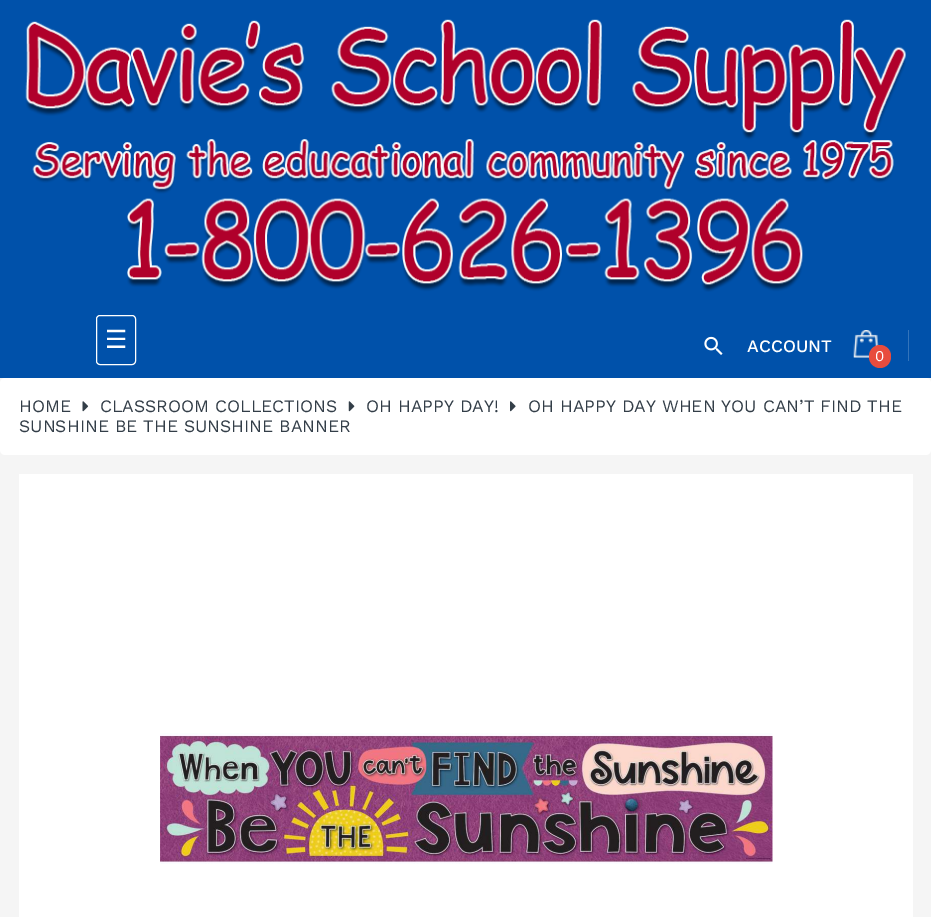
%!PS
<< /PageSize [931 917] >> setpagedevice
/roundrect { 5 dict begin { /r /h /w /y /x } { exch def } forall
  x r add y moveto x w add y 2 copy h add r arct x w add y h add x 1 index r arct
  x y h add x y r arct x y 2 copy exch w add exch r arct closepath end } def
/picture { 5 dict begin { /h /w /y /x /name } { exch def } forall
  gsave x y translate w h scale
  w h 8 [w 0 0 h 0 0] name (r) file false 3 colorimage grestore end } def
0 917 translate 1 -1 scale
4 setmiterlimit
0 0.318 0.667 setrgbcolor
0 0 931 917 rectfill
(img1.rgb) 25 19 881 273 picture
1 setgray
96.5 315.5 39 49 3.5 roundrect stroke
/DejaVuSans-Regular [25 0 0 -25 0 0] selectfont
105 348 moveto (☰) show
(img2.rgb) 704 336 19 19 picture
/WorkSans-Medium [17.5 0 0 -17.5 0 0] selectfont
747 352 moveto (ACCOUNT) show
0.2 0.455 0.733 setrgbcolor
908 330 1 31 rectfill
(img3.rgb) 853 330 26 28 picture
0.91 0.298 0.239 setrgbcolor
869 345 22 23 11 roundrect fill
/WorkSans-Regular [15 0 0 -15 0 0] selectfont
1 setgray
875 361 moveto (0) show
0.961 setgray
0 378 931 539 rectfill
1 setgray
0 378 931 77 5 roundrect fill
/WorkSans-Regular [17.5 0 0 -17.5 0 0] selectfont
0.2 0.243 0.282 setrgbcolor
19 412 moveto (HOME) show
(img4.rgb) 82 401 7 11 picture
100 412 moveto (CLASSROOM COLLECTIONS) show
(img5.rgb) 348 401 7 11 picture
366 412 moveto (OH HAPPY DAY!) show
(img6.rgb) 510 401 6 11 picture
528 412 moveto (OH HAPPY DAY WHEN YOU CAN’T FIND THE) show
19 432 moveto (SUNSHINE BE THE SUNSHINE BANNER) show
1 setgray
19 474 894 443 rectfill
(img7.rgb) 160 733 613 131 picture
showpage
